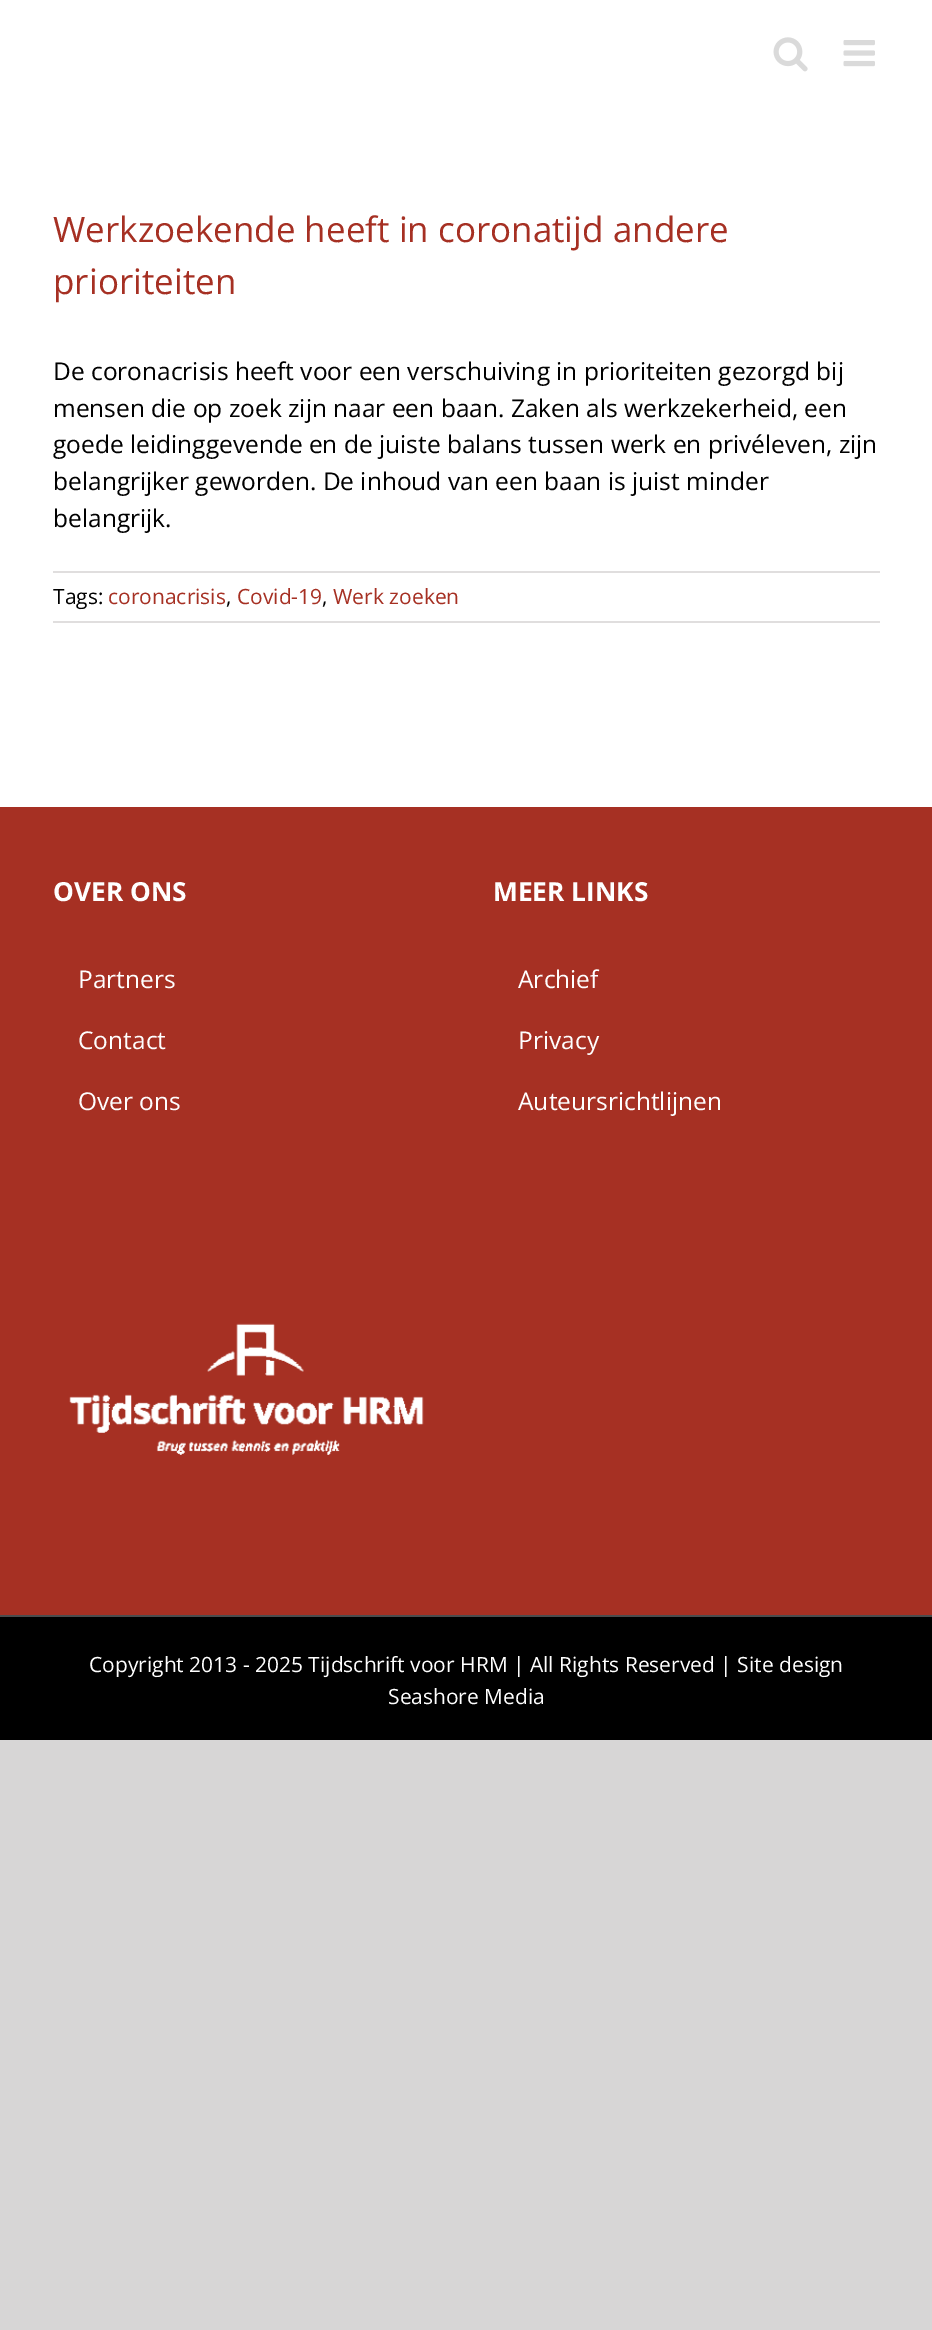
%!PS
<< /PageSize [932 2330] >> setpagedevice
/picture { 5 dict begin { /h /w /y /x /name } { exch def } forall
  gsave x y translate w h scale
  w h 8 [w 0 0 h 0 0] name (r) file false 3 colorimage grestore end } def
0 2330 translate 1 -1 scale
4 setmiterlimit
0.843 0.839 0.839 setrgbcolor
0 0 932 2330 rectfill
1 setgray
0 0 932 807 rectfill
(img1.rgb) 773 37 35 35 picture
(img2.rgb) 843 40 32 27 picture
/OpenSans-Regular [35 0 0 -35 0 0] selectfont
0.651 0.188 0.137 setrgbcolor
53 242 moveto (Werkzoekende heeft in coronatijd andere) show
53 294 moveto (prioriteiten) show
/OpenSans-Regular [24.5 0 0 -24.5 0 0] selectfont
0 setgray
53 380 moveto (De coronacrisis heeft voor een verschuiving in prioriteiten gezorgd bij) show
53 417 moveto (mensen die op zoek zijn naar een baan. Zaken als werkzekerheid, een) show
53 453 moveto (goede leidinggevende en de juiste balans tussen werk en privéleven, zijn) show
53 490 moveto (belangrijker geworden. De inhoud van een baan is juist minder) show
53 527 moveto (belangrijk.) show
0.878 0.871 0.871 setrgbcolor
53 571 827 2 rectfill
53 621 827 2 rectfill
/OpenSans-Regular [21 0 0 -21 0 0] selectfont
0 setgray
53 604 moveto (Tags:) show
0.651 0.188 0.137 setrgbcolor
108 604 moveto (coronacrisis) show
0 setgray
226 604 moveto (,) show
0.651 0.188 0.137 setrgbcolor
237 604 moveto (Covid-19) show
0 setgray
322 604 moveto (,) show
0.651 0.188 0.137 setrgbcolor
333 604 moveto (Werk zoeken) show
0 807 932 808 rectfill
/OpenSans-Bold [26.25 0 0 -26.25 0 0] selectfont
1 setgray
53 901 moveto (OVER ONS) show
/OpenSans-Regular [24.5 0 0 -24.5 0 0] selectfont
78 988 moveto (Partners) show
78 1049 moveto (Contact) show
78 1110 moveto (Over ons) show
/OpenSans-Bold [26.25 0 0 -26.25 0 0] selectfont
493 901 moveto (MEER LINKS) show
/OpenSans-Regular [24.5 0 0 -24.5 0 0] selectfont
518 988 moveto (Archief) show
518 1049 moveto (Privacy) show
518 1110 moveto (Auteursrichtlijnen) show
(img3.rgb) 69 1323 355 132 picture
0 setgray
0 1617 932 123 rectfill
0.294 0.298 0.302 setrgbcolor
0 1615 932 2 rectfill
/OpenSans-Regular [21 0 0 -21 0 0] selectfont
1 setgray
89 1672 moveto (Copyright 2013 - 2025 Tijdschrift voor HRM | All Rights Reserved | Site design) show
388 1704 moveto (Seashore Media) show
showpage
